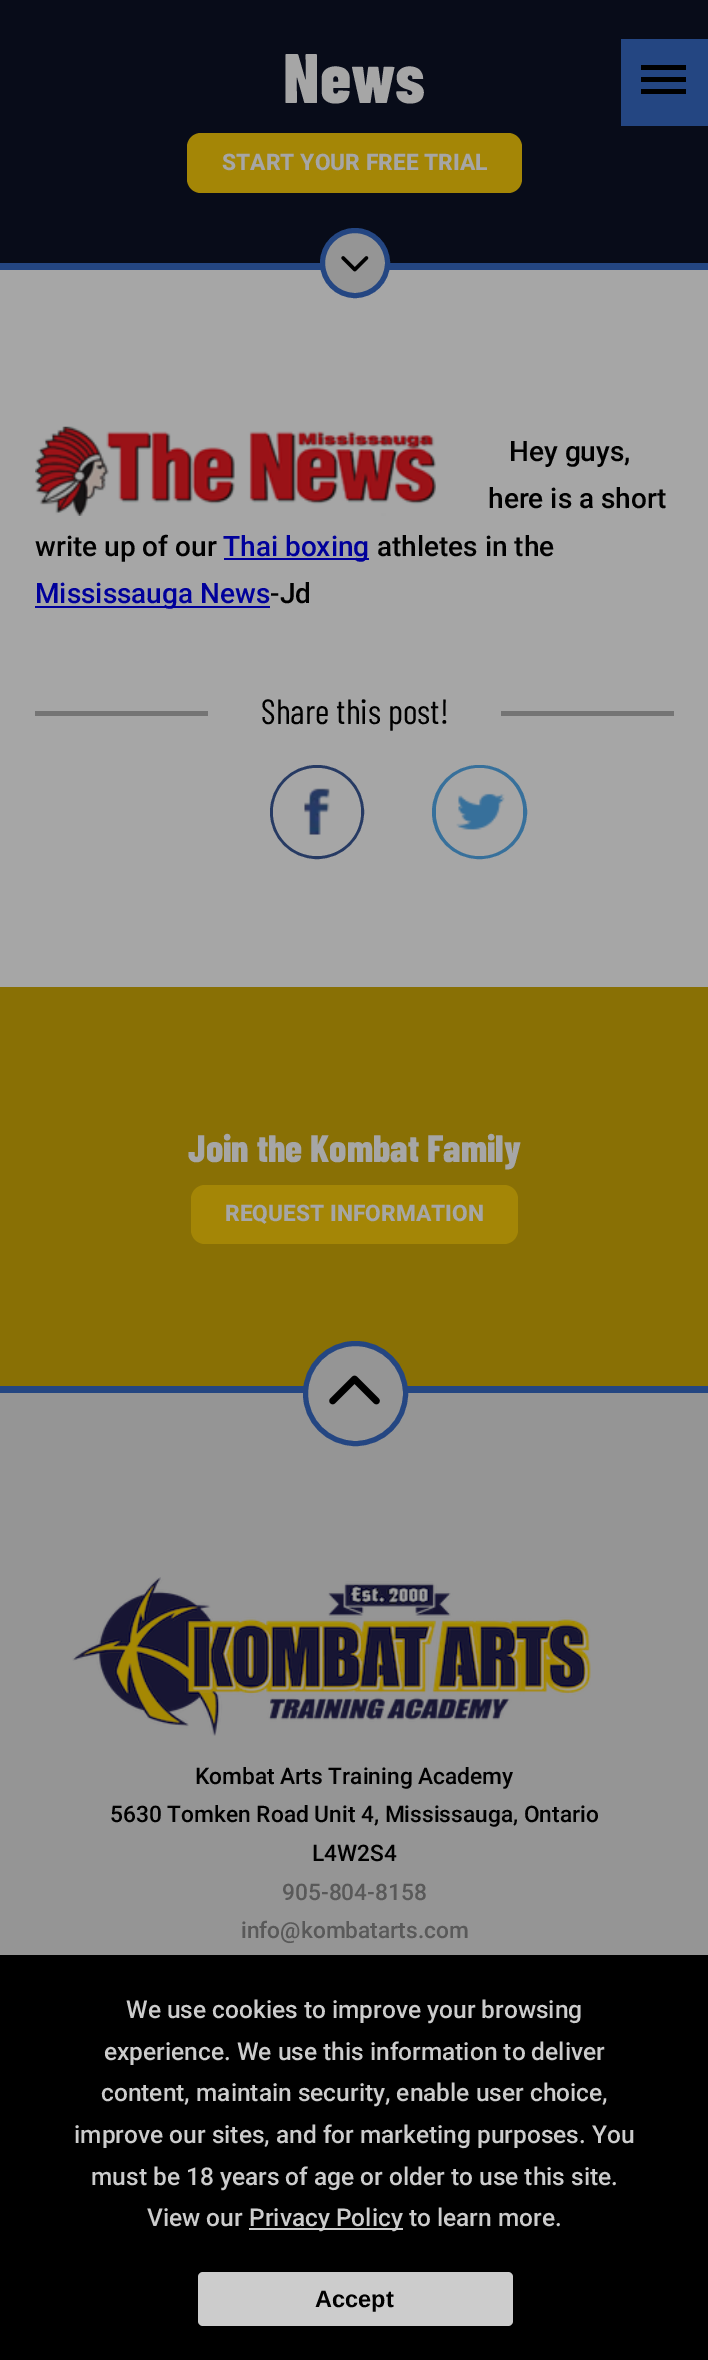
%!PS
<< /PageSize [708 2360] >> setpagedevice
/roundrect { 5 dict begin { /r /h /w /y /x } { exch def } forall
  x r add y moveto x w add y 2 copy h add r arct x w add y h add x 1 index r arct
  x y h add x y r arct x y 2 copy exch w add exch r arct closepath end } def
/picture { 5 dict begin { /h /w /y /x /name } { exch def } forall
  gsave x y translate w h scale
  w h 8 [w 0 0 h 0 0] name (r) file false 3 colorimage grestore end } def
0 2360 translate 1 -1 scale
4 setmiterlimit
0.651 setgray
0 0 708 2360 rectfill
0.031 0.047 0.098 setrgbcolor
0 0 708 263 rectfill
/BarlowCondensed-ExtraBold [70 0 0 -70 0 0] selectfont
0.651 setgray
283 103 moveto (News) show
0.643 0.525 0.024 setrgbcolor
187 133 335 60 14 roundrect fill
/Roboto-ExtraBold [22.75 0 0 -22.75 0 0] selectfont
0.651 setgray
222 170 moveto (START YOUR FREE TRIAL) show
0.141 0.275 0.51 setrgbcolor
621 39 87 87 rectfill
0 setgray
641 65 45 5 rectfill
641 77 45 5 rectfill
641 89 45 5 rectfill
0.141 0.275 0.51 setrgbcolor
0 263 708 7 rectfill
0.584 setgray
newpath 355 263 32.5 0 360 arc closepath gsave fill grestore
0.141 0.275 0.51 setrgbcolor
5 setlinewidth
stroke
(img1.rgb) 341 256 28 16 picture
(img2.rgb) 35 426 401 90 picture
/Roboto-Medium [28 0 0 -28 0 0] selectfont
0 setgray
509 461 moveto (Hey guys,) show
488 508 moveto (here is a short) show
35 556 moveto (write up of our) show
0 0 0.608 setrgbcolor
224 558 145 2 rectfill
223 556 moveto (Thai boxing) show
0 setgray
377 556 moveto (athletes in the) show
0 0 0.608 setrgbcolor
35 606 235 2 rectfill
35 603 moveto (Mississauga News) show
0 setgray
270 603 moveto (-Jd) show
0.455 setgray
35 711 173 5 rectfill
/BarlowCondensed-Regular [35 0 0 -35 0 0] selectfont
0 setgray
261 724 moveto (Share this post!) show
0.455 setgray
501 711 173 5 rectfill
0.149 0.227 0.388 setrgbcolor
4 setlinewidth
newpath 317 812 45 0 360 arc closepath stroke
0.651 setgray
newpath 317 812 44 0 360 arc closepath fill
(img3.rgb) 304 788 26 47 picture
0.216 0.439 0.608 setrgbcolor
434 767 91 90 45 roundrect stroke
0.651 setgray
436 768 87 88 43.5 roundrect fill
(img4.rgb) 456 793 49 37 picture
0.537 0.439 0.02 setrgbcolor
0 987 708 399 rectfill
/BarlowCondensed-ExtraBold [38.25 0 0 -38.25 0 0] selectfont
0.651 setgray
188 1162 moveto (Join the Kombat Family) show
0.643 0.525 0.024 setrgbcolor
191 1185 327 59 14 roundrect fill
/Roboto-ExtraBold [22.75 0 0 -22.75 0 0] selectfont
0.651 setgray
225 1221 moveto (REQUEST INFORMATION) show
0.584 setgray
0 1393 708 562 rectfill
0.141 0.275 0.51 setrgbcolor
0 1386 708 7 rectfill
0.584 setgray
newpath 355.5 1393.5 50 0 360 arc closepath gsave fill grestore
0.141 0.275 0.51 setrgbcolor
5 setlinewidth
stroke
(img5.rgb) 329 1375 51 30 picture
(img6.rgb) 72 1577 519 159 picture
/Roboto-Medium [22.75 0 0 -22.75 0 0] selectfont
0 setgray
195 1784 moveto (Kombat Arts Training Academy) show
110 1822 moveto (5630 Tomken Road Unit 4, Mississauga, Ontario) show
312 1861 moveto (L4W2S4) show
0.349 setgray
282 1900 moveto (905-804-8158) show
241 1938 moveto (info@kombatarts.com) show
0 setgray
0 1955 708 405 rectfill
/Roboto-Medium [24.5 0 0 -24.5 0 0] selectfont
0.8 setgray
126 2018 moveto (We use cookies to improve your browsing) show
104 2060 moveto (experience. We use this information to deliver) show
101 2101 moveto (content, maintain security, enable user choice,) show
74 2143 moveto (improve our sites, and for marketing purposes. You) show
91 2185 moveto (must be 18 years of age or older to use this site.) show
147 2226 moveto (View our) show
249 2228 154 2 rectfill
249 2226 moveto (Privacy Policy to learn more.) show
198 2272 315 54 5 roundrect fill
/LiberationSans-Bold [23.5 0 0 -23.5 0 0] selectfont
0 setgray
315 2307 moveto (Accept) show
showpage
